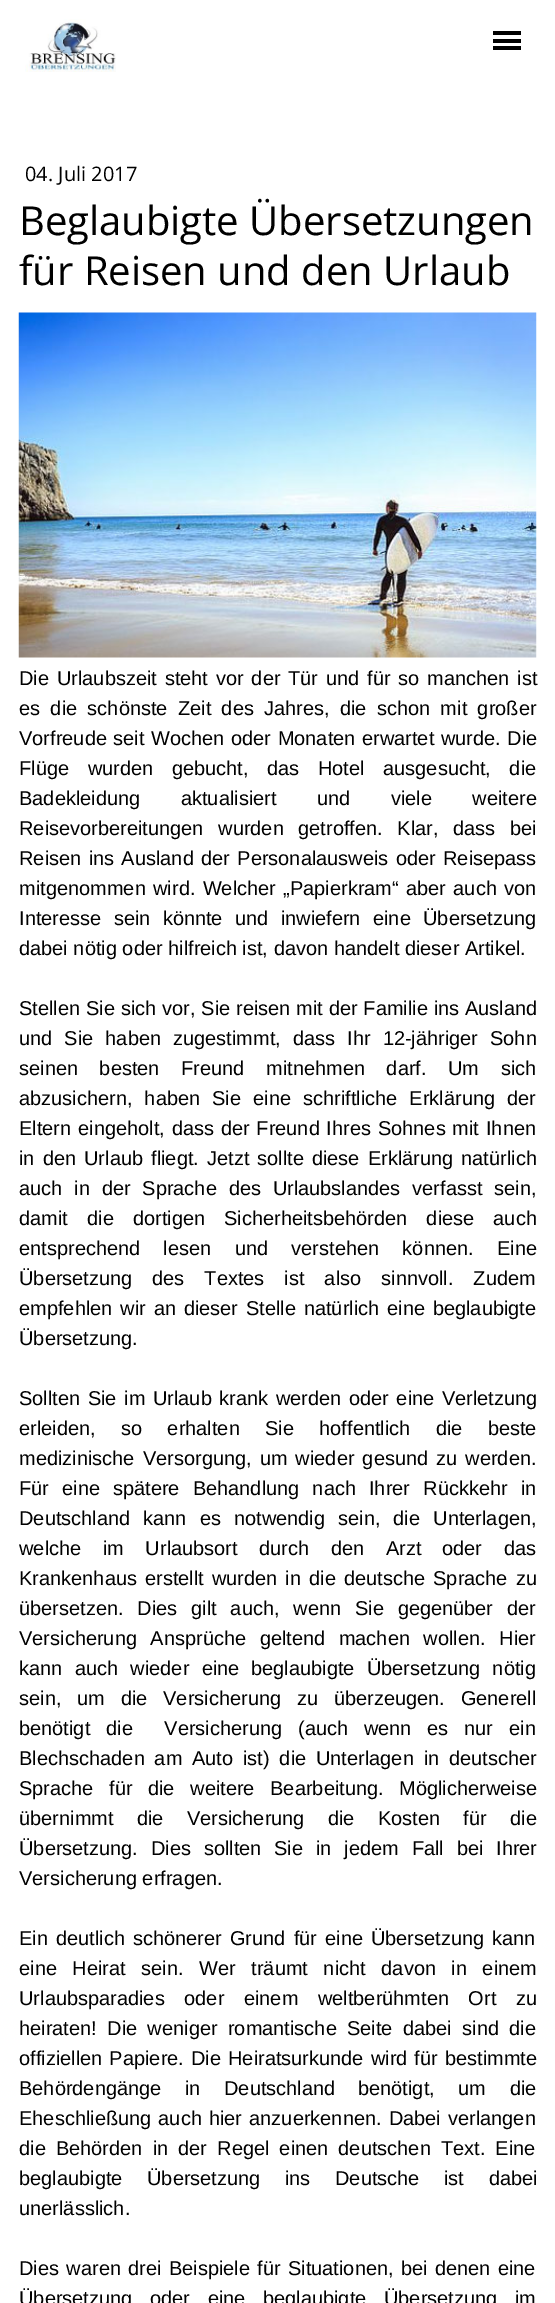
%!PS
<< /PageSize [555 2303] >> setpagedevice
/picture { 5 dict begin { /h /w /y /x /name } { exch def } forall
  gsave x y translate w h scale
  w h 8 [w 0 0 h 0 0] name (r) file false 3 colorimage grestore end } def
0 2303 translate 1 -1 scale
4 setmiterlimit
1 setgray
0 0 555 2303 rectfill
(img1.rgb) 25 19 91 53 picture
0 setgray
493 39 28 4 rectfill
493 31 28 4 rectfill
493 46 28 4 rectfill
/OpenSans-Regular [20 0 0 -20 0 0] selectfont
25 181 moveto (04. Juli 2017) show
/OpenSans-Regular [40 0 0 -40 0 0] selectfont
19 235 moveto (Beglaubigte Übersetzungen) show
19 285 moveto (für Reisen und den Urlaub) show
(img2.rgb) 18 312 519 346 picture
/LiberationSans-Regular [20 0 0 -20 0 0] selectfont
19 685 moveto 2.25 0 32 (Die Urlaubszeit steht vor der Tür und für so manchen ist) widthshow
19 715 moveto 4.75 0 32 (es die schönste Zeit des Jahres, die schon mit großer) widthshow
19 745 moveto 1 0 32 (Vorfreude seit Wochen oder Monaten erwartet wurde. Die) widthshow
19 775 moveto 13 0 32 (Flüge wurden gebucht, das Hotel ausgesucht, die) widthshow
19 805 moveto 35 0 32 (Badekleidung aktualisiert und viele weitere) widthshow
19 835 moveto 9 0 32 (Reisevorbereitungen wurden getroffen. Klar, dass) widthshow
510 835 moveto (bei) show
19 865 moveto 1.75 0 32 (Reisen ins Ausland der Personalausweis oder Reisepass) widthshow
19 895 moveto 1.75 0 32 (mitgenommen wird. Welcher „Papierkram“ aber auch von) widthshow
19 925 moveto 6.75 0 32 (Interesse sein könnte und inwiefern eine Übersetzung) widthshow
19 955 moveto (dabei nötig oder hilfreich ist, davon handelt dieser Artikel.) show
19 1015 moveto 0.25 0 32 (Stellen Sie sich vor, Sie reisen mit der Familie ins Ausland) widthshow
19 1045 moveto 6.5 0 32 (und Sie haben zugestimmt, dass Ihr 12-jähriger) widthshow
490 1045 moveto (Sohn) show
19 1075 moveto 16 0 32 (seinen besten Freund mitnehmen darf. Um sich) widthshow
19 1105 moveto 6.5 0 32 (abzusichern, haben Sie eine schriftliche Erklärung der) widthshow
19 1135 moveto 1.25 0 32 (Eltern eingeholt, dass der Freund Ihres Sohnes mit Ihnen) widthshow
19 1165 moveto 2.5 0 32 (in den Urlaub fliegt. Jetzt) widthshow
257 1165 moveto 2.5 0 32 (sollte diese Erklärung natürlich) widthshow
19 1195 moveto 6.25 0 32 (auch in der Sprache des Urlaubslandes verfasst sein,) widthshow
19 1225 moveto 13.5 0 32 (damit die dortigen Sicherheitsbehörden diese auch) widthshow
19 1255 moveto 17.75 0 32 (entsprechend lesen und verstehen können. Eine) widthshow
19 1285 moveto (Übersetzung) show
152 1285 moveto 14.5 0 32 (des Textes ist also sinnvoll. Zudem) widthshow
19 1315 moveto 2.25 0 32 (empfehlen wir an dieser Stelle natürlich eine beglaubigte) widthshow
19 1345 moveto (Übersetzung.) show
19 1405 moveto 2 0 32 (Sollten Sie im Urlaub krank werden oder eine Verletzung) widthshow
19 1435 moveto 19.75 0 32 (erleiden, so erhalten Sie hoffentlich die beste) widthshow
19 1465 moveto 2.5 0 32 (medizinische Versorgung, um wieder gesund zu werden.) widthshow
19 1495 moveto 7.5 0 32 (Für eine spätere Behandlung nach Ihrer Rückkehr in) widthshow
19 1525 moveto 7.5 0 32 (Deutschland kann es notwendig sein, die Unterlagen,) widthshow
19 1555 moveto 16 0 32 (welche im Urlaubsort durch den Arzt) widthshow
442 1555 moveto 16 0 32 (oder das) widthshow
19 1585 moveto 2.5 0 32 (Krankenhaus erstellt wurden in die deutsche Sprache zu) widthshow
19 1615 moveto 8.25 0 32 (übersetzen. Dies gilt auch, wenn Sie gegenüber der) widthshow
19 1645 moveto 8 0 32 (Versicherung Ansprüche geltend machen wollen. Hier) widthshow
19 1675 moveto 6.75 0 32 (kann auch wieder eine) widthshow
251 1675 moveto 6.75 0 32 (beglaubigte Übersetzung nötig) widthshow
19 1705 moveto 10.25 0 32 (sein, um die Versicherung zu überzeugen. Generell) widthshow
19 1735 moveto 10.25 0 32 (benötigt die  Versicherung \(auch wenn es nur ein) widthshow
19 1765 moveto 4.25 0 32 (Blechschaden am Auto ist\) die Unterlagen in deutscher) widthshow
19 1795 moveto (Sprache) show
109 1795 moveto 10 0 32 (für die weitere Bearbeitung. Möglicherweise) widthshow
19 1825 moveto 17.75 0 32 (übernimmt die Versicherung die Kosten für die) widthshow
19 1855 moveto 7.25 0 32 (Übersetzung. Dies sollten Sie in jedem Fall bei Ihrer) widthshow
19 1885 moveto (Versicherung erfragen.) show
19 1945 moveto 2.5 0 32 (Ein deutlich schönerer Grund für eine Übersetzung kann) widthshow
19 1975 moveto 10 0 32 (eine Heirat sein. Wer träumt nicht davon in einem) widthshow
19 2005 moveto 14 0 32 (Urlaubsparadies oder einem weltberühmten Ort zu) widthshow
19 2035 moveto 4.75 0 32 (heiraten! Die weniger romantische Seite dabei sind die) widthshow
19 2065 moveto 1.5 0 32 (offiziellen Papiere. Die Heiratsurkunde wird für bestimmte) widthshow
19 2095 moveto 18 0 32 (Behördengänge in Deutschland) widthshow
358 2095 moveto 18 0 32 (benötigt, um die) widthshow
19 2125 moveto 1.5 0 32 (Eheschließung auch hier anzuerkennen. Dabei verlangen) widthshow
19 2155 moveto 4.5 0 32 (die Behörden in der Regel einen deutschen Text. Eine) widthshow
19 2185 moveto 19 0 32 (beglaubigte Übersetzung ins Deutsche ist dabei) widthshow
19 2215 moveto (unerlässlich.) show
19 2275 moveto 1.75 0 32 (Dies waren drei Beispiele für Situationen, bei denen eine) widthshow
19 2305 moveto 12 0 32 (Übersetzung oder eine beglaubigte Übersetzung im) widthshow
showpage
